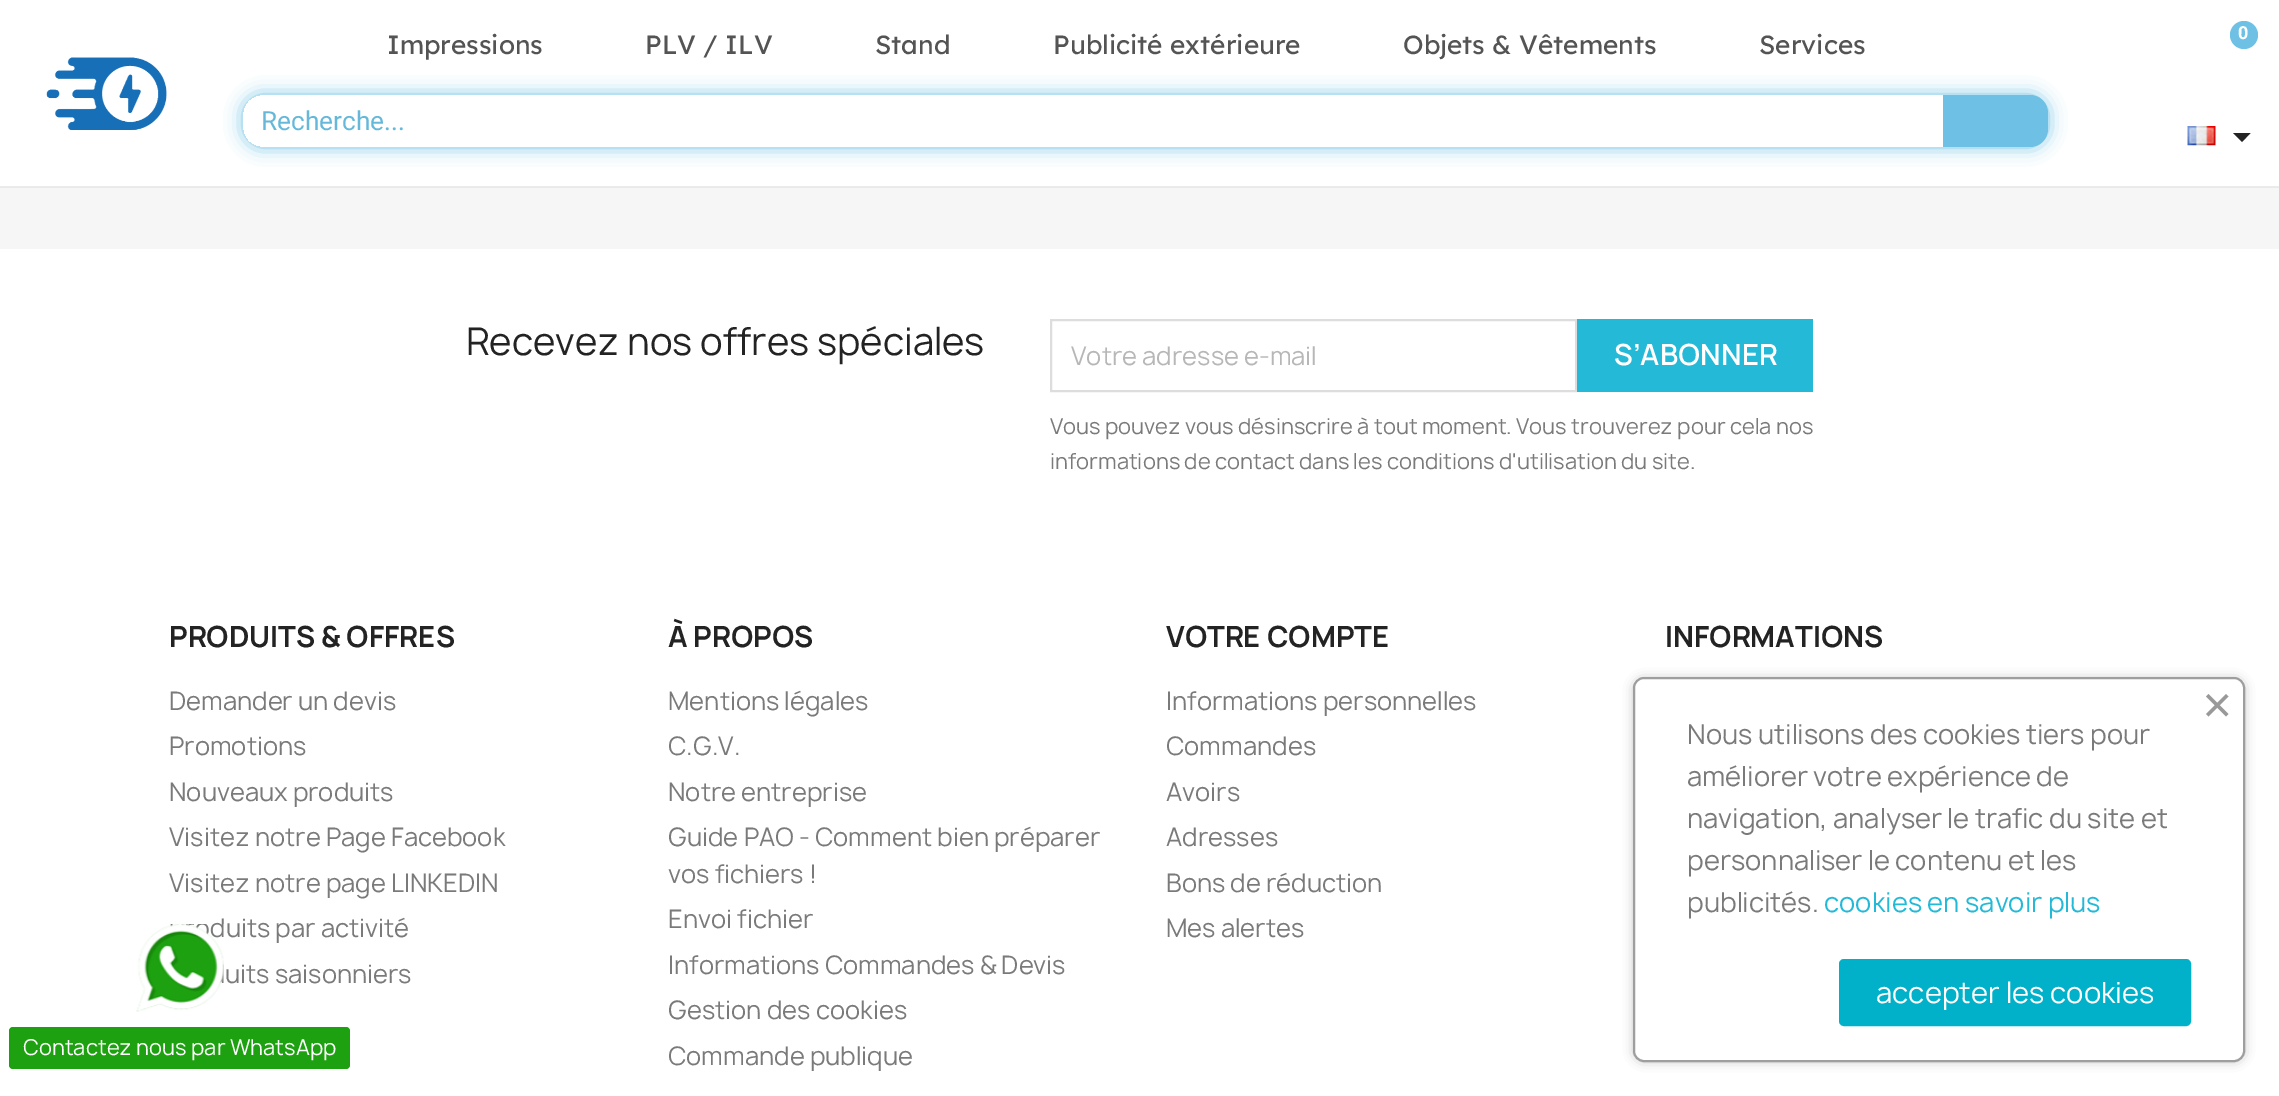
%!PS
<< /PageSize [2279 1096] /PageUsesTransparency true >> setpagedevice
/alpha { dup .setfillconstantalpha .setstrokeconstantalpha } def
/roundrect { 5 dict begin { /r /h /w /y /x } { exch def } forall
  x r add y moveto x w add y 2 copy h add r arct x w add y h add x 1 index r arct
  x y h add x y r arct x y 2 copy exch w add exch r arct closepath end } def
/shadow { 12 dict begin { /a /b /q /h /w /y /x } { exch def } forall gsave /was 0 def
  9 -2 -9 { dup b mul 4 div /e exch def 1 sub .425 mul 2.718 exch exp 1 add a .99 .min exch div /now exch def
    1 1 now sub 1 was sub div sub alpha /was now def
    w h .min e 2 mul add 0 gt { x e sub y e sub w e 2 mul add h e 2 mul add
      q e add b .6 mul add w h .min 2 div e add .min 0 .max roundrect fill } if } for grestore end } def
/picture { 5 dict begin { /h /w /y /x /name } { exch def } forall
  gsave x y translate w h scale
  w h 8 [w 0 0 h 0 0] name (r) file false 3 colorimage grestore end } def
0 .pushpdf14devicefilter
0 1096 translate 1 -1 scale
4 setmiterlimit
1 setgray
0 0 2279 1096 rectfill
0.965 setgray
0 187 2279 62 rectfill
0.8 alpha
0.902 setgray
0 186 2279 2 rectfill
1 alpha
(img1.rgb) 46 57 121 73 picture
/LexendDeca-Regular [26.25 0 0 -26.25 0 0] selectfont
0.329 setgray
387 54 moveto (Impressions) show
645 54 moveto (PLV / ILV) show
875 54 moveto (Stand) show
1053 54 moveto (Publicité extérieure) show
1403 54 moveto (Objets & Vêtements) show
1759 54 moveto (Services) show
gsave
newpath 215 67 moveto 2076 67 lineto 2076 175 lineto 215 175 lineto closepath 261 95 moveto 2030 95 lineto 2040 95 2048 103 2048 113 curveto 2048 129 lineto 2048 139 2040 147 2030 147 curveto 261 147 lineto 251 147 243 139 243 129 curveto 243 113 lineto 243 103 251 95 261 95 curveto closepath eoclip newpath
0.431 0.757 0.894 setrgbcolor
243 95 1805 52 18 9 1 shadow
grestore
/Roboto-Regular [26.25 0 0 -26.25 0 0] selectfont
0.4 0.722 0.855 setrgbcolor
261 130 moveto (Recherche...) show
0.431 0.757 0.894 setrgbcolor
newpath 1943 95 moveto 2030 95 lineto 2040 95 2048 103 2048 113 curveto 2048 129 lineto 2048 139 2040 147 2030 147 curveto 1943 147 lineto closepath fill
newpath 2244 35 14 0 360 arc closepath fill
/Roboto-Bold [18 0 0 -18 0 0] selectfont
1 setgray
2238 39 moveto (0) show
(img2.rgb) 2187 126 29 20 picture
0.137 setgray
newpath 2233 133 moveto 2250.5 133 lineto 2242 142 lineto closepath fill
/Manrope-Regular [36.75 0 0 -36.75 0 0] selectfont
466 355 moveto (Recevez nos offres spéciales) show
0.867 setgray
2 setlinewidth
1051 320 525 71 rectstroke
/Manrope-Regular [24.5 0 0 -24.5 0 0] selectfont
0.718 setgray
1071 365 moveto (Votre adresse e-mail) show
0.141 0.725 0.843 setrgbcolor
1577 319 236 73 rectfill
/Manrope-SemiBold [28 0 0 -28 0 0] selectfont
1 setgray
1614 365 moveto (S’ABONNER) show
/Manrope-Regular [21 0 0 -21 0 0] selectfont
0.478 setgray
1050 434 moveto (Vous pouvez vous désinscrire à tout moment. Vous trouverez pour cela nos) show
1050 469 moveto (informations de contact dans les conditions d'utilisation du site.) show
/Manrope-Bold [28 0 0 -28 0 0] selectfont
0.137 setgray
169 647 moveto (PRODUITS & OFFRES) show
/Manrope-Regular [24.5 0 0 -24.5 0 0] selectfont
0.478 setgray
169 710 moveto (Demander un devis) show
169 755 moveto (Promotions) show
169 801 moveto (Nouveaux produits) show
169 846 moveto (Visitez notre Page Facebook) show
169 892 moveto (Visitez notre page LINKEDIN) show
210 937 moveto (duits par activité) show
225 983 moveto (uits saisonniers) show
/Manrope-Bold [28 0 0 -28 0 0] selectfont
0.137 setgray
668 647 moveto (À PROPOS) show
/Manrope-Regular [24.5 0 0 -24.5 0 0] selectfont
0.478 setgray
668 710 moveto (Mentions légales) show
668 755 moveto (C.G.V.) show
668 801 moveto (Notre entreprise) show
668 846 moveto (Guide PAO - Comment bien préparer) show
668 883 moveto (vos fichiers !) show
668 928 moveto (Envoi fichier) show
668 974 moveto (Informations Commandes & Devis) show
668 1019 moveto (Gestion des cookies) show
668 1065 moveto (Commande publique) show
/Manrope-Bold [28 0 0 -28 0 0] selectfont
0.137 setgray
1166 647 moveto (VOTRE COMPTE) show
/Manrope-Regular [24.5 0 0 -24.5 0 0] selectfont
0.478 setgray
1166 710 moveto (Informations personnelles) show
1166 755 moveto (Commandes) show
1166 801 moveto (Avoirs) show
1166 846 moveto (Adresses) show
1166 892 moveto (Bons de réduction) show
1166 937 moveto (Mes alertes) show
/Manrope-Bold [28 0 0 -28 0 0] selectfont
0.137 setgray
1665 647 moveto (INFORMATIONS) show
(img3.rgb) 136 924 88 88 picture
0.114 0.631 0.063 setrgbcolor
9 1027 341 42 4 roundrect fill
/Manrope-Regular [21 0 0 -21 0 0] selectfont
1 setgray
23 1055 moveto (Contactez nous par WhatsApp) show
0.62 setgray
1636 681 606 378 7 6 1 shadow
1 setgray
1634 678 610 383 10 roundrect gsave fill grestore
0.62 setgray
stroke
0.6 setgray
newpath 2206 714 moveto 2226 694 lineto 2228.5 696.5 lineto 2208.5 716.5 lineto closepath fill
newpath 2208.5 694 moveto 2228.5 714 lineto 2226 716.5 lineto 2206 696.5 lineto closepath fill
/Manrope-Regular [26.25 0 0 -26.25 0 0] selectfont
0.478 setgray
1687 744 moveto (Nous utilisons des cookies tiers pour) show
1687 786 moveto (améliorer votre expérience de) show
1687 828 moveto (navigation, analyser le trafic du site et) show
1687 870 moveto (personnaliser le contenu et les) show
1687 912 moveto (publicités.) show
0.141 0.725 0.843 setrgbcolor
1824 912 moveto (cookies en savoir plus) show
0 0.694 0.788 setrgbcolor
1840 960 350 65 4 roundrect gsave fill grestore
stroke
/Manrope-Regular [28 0 0 -28 0 0] selectfont
1 setgray
1876 1003 moveto (accepter les cookies) show
.poppdf14devicefilter showpage
